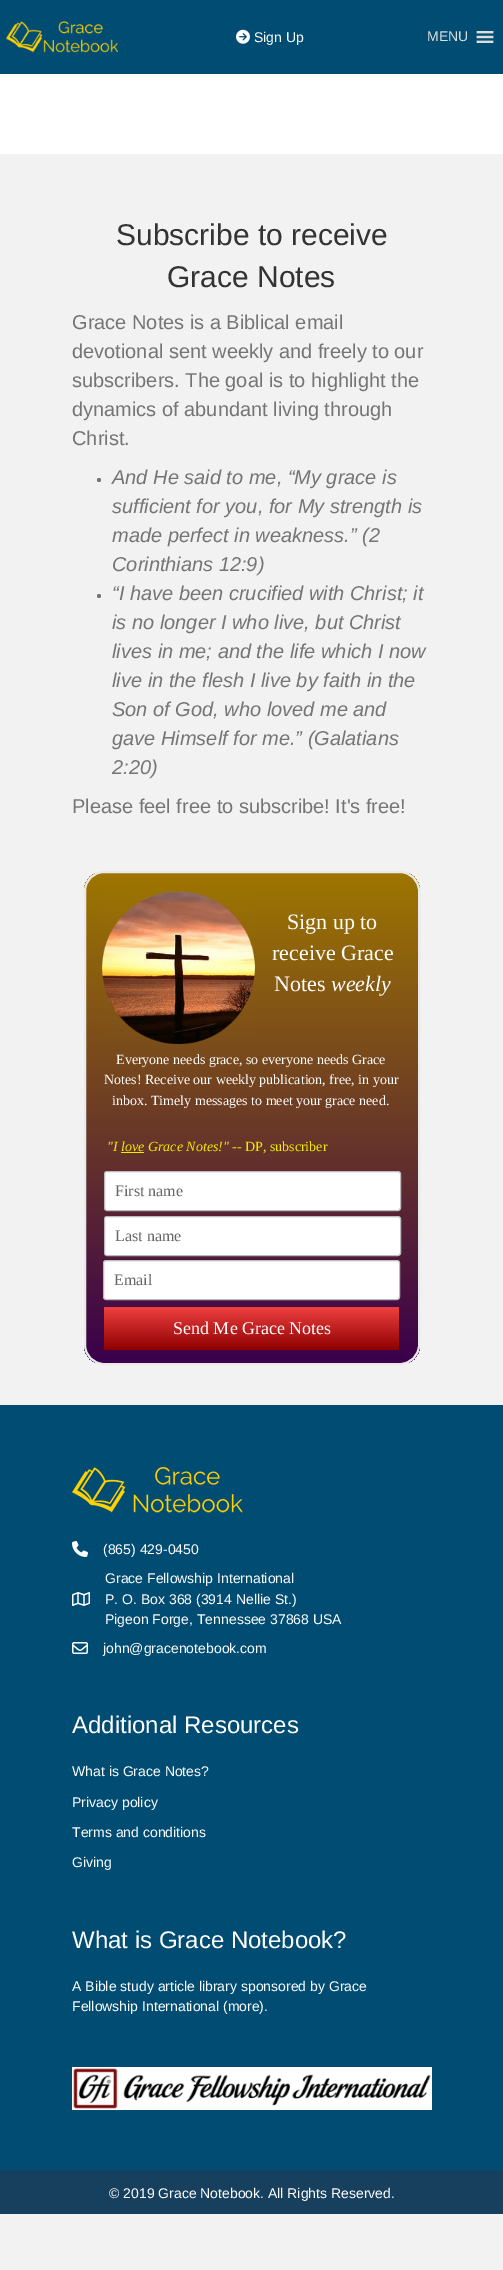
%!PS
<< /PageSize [503 2270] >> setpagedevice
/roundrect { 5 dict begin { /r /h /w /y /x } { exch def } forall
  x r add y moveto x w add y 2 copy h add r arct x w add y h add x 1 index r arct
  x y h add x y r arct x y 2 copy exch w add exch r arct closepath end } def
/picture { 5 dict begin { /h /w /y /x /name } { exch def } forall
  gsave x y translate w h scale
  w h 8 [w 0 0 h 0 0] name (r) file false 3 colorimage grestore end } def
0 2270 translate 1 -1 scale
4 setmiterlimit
0.949 setgray
0 0 503 2270 rectfill
0 0.298 0.447 setrgbcolor
0 0 503 74 rectfill
(img1.rgb) 6 21 112 32 picture
(img2.rgb) 236 29 14 15 picture
/LiberationSans-Regular [14 0 0 -14 0 0] selectfont
1 setgray
254 42 moveto (Sign Up) show
0.867 setgray
427 41 moveto (MENU) show
(img3.rgb) 476 31 18 12 picture
1 setgray
0 74 503 80 rectfill
/LiberationSans-Regular [30 0 0 -30 0 0] selectfont
0.2 setgray
116 245 moveto (Subscribe to receive) show
167 287 moveto (Grace Notes) show
/LiberationSans-Regular [20 0 0 -20 0 0] selectfont
0.459 setgray
72 329 moveto (Grace Notes is a Biblical email) show
72 358 moveto (devotional sent weekly and freely to our) show
72 387 moveto (subscribers. The goal is to highlight the) show
72 416 moveto (dynamics of abundant living through) show
72 445 moveto (Christ.) show
newpath 99 480 2 0 360 arc closepath fill
/LiberationSans-Italic [20 0 0 -20 0 0] selectfont
112 484 moveto (And He said to me, “My grace is) show
112 513 moveto (sufficient for you, for My strength is) show
112 542 moveto (made perfect in weakness.” \(2) show
112 571 moveto (Corinthians 12:9\)) show
newpath 99 596 2 0 360 arc closepath fill
112 600 moveto (“I have been crucified with Christ; it) show
112 629 moveto (is no longer I who live, but Christ) show
112 658 moveto (lives in me; and the life which I now) show
112 687 moveto (live in the flesh I live by faith in the) show
112 716 moveto (Son of God, who loved me and) show
112 745 moveto (gave Himself for me.” \(Galatians) show
112 774 moveto (2:20\)) show
/LiberationSans-Regular [20 0 0 -20 0 0] selectfont
72 813 moveto (Please feel free to subscribe! It's free!) show
gsave
84 871 336 494 20 roundrect clip newpath
gsave newpath 84 873 moveto 420 873 lineto 420 1363 lineto 84 1363 lineto closepath clip newpath
<< /ShadingType 2 /ColorSpace /DeviceRGB /Coords [252 873 252 1363] /Extend [true true] /Function << /FunctionType 2 /Domain [0 1] /C0 [0.62 0.463 0] /C1 [0.227 0 0.298] /N 1 >> >> shfill grestore
grestore
0.918 setgray
2 setlinewidth
85 872 334 492 19 roundrect stroke
(img4.rgb) 102 891 153 153 picture
/LiberationSerif-Regular [22 0 0 -22 0 0] selectfont
1 setgray
287 929 moveto (Sign up to) show
272 960 moveto (receive Grace) show
274 991 moveto (Notes) show
/LiberationSerif-Italic [22 0 0 -22 0 0] selectfont
331 991 moveto (weekly) show
/LiberationSerif-Regular [14 0 0 -14 0 0] selectfont
116 1064 moveto (Everyone needs grace, so everyone needs Grace) show
104 1084 moveto (Notes! Receive our weekly publication, free, in your) show
112 1105 moveto (inbox. Timely messages to meet your grace need.) show
/LiberationSerif-Italic [14 0 0 -14 0 0] selectfont
0.929 0.929 0 setrgbcolor
107 1151 moveto ("I love Grace Notes!") show
121 1152 23 1 rectfill
/LiberationSerif-Regular [14 0 0 -14 0 0] selectfont
232 1151 moveto (-- DP, subscriber) show
1 setgray
104.5 1171.5 296 39 2.5 roundrect gsave fill grestore
0.733 setgray
1 setlinewidth
stroke
/LiberationSerif-Regular [16 0 0 -16 0 0] selectfont
0.4 setgray
115 1196 moveto (First name) show
1 setgray
104.5 1216.5 296 39 2.5 roundrect gsave fill grestore
0.733 setgray
stroke
0.4 setgray
115 1241 moveto (Last name) show
1 setgray
103.5 1260.5 296 39 2.5 roundrect gsave fill grestore
0.733 setgray
stroke
0.4 setgray
114 1285 moveto (Email) show
gsave newpath 104 1307 moveto 399 1307 lineto 399 1350 lineto 104 1350 lineto closepath clip newpath
<< /ShadingType 2 /ColorSpace /DeviceRGB /Coords [252 1307 252 1350] /Extend [true true] /Function << /FunctionType 2 /Domain [0 1] /C0 [0.937 0.251 0.251] /C1 [0.557 0 0] /N 1 >> >> shfill grestore
/LiberationSerif-Regular [18 0 0 -18 0 0] selectfont
1 setgray
173 1334 moveto (Send Me Grace Notes) show
0 0.298 0.447 setrgbcolor
0 1405 503 765 rectfill
(img5.rgb) 72 1467 171 46 picture
(img6.rgb) 72 1541 16 16 picture
/LiberationSans-Regular [14 0 0 -14 0 0] selectfont
1 setgray
103 1554 moveto (\(865\) 429-0450) show
(img7.rgb) 72 1592 18 14 picture
105 1583 moveto (Grace Fellowship International) show
105 1604 moveto (P. O. Box 368 \(3914 Nellie St.\)) show
105 1624 moveto (Pigeon Forge, Tennessee 37868 USA) show
(img8.rgb) 72 1642 16 12 picture
103 1653 moveto (john@gracenotebook.com) show
/LiberationSans-Regular [24 0 0 -24 0 0] selectfont
72 1733 moveto (Additional Resources) show
/LiberationSans-Regular [14 0 0 -14 0 0] selectfont
72 1776 moveto (What is Grace Notes?) show
72 1807 moveto (Privacy policy) show
72 1837 moveto (Terms and conditions) show
72 1867 moveto (Giving) show
/LiberationSans-Regular [24 0 0 -24 0 0] selectfont
72 1948 moveto (What is Grace Notebook?) show
/LiberationSans-Regular [14 0 0 -14 0 0] selectfont
72 1991 moveto (A Bible study article library sponsored by Grace) show
72 2011 moveto (Fellowship International \(more\).) show
(img9.rgb) 72 2067 360 43 picture
0.086 0.251 0.369 setrgbcolor
0 2170 503 44 rectfill
1 setgray
109 2198 moveto (© 2019 Grace Notebook. All Rights Reserved.) show
showpage
